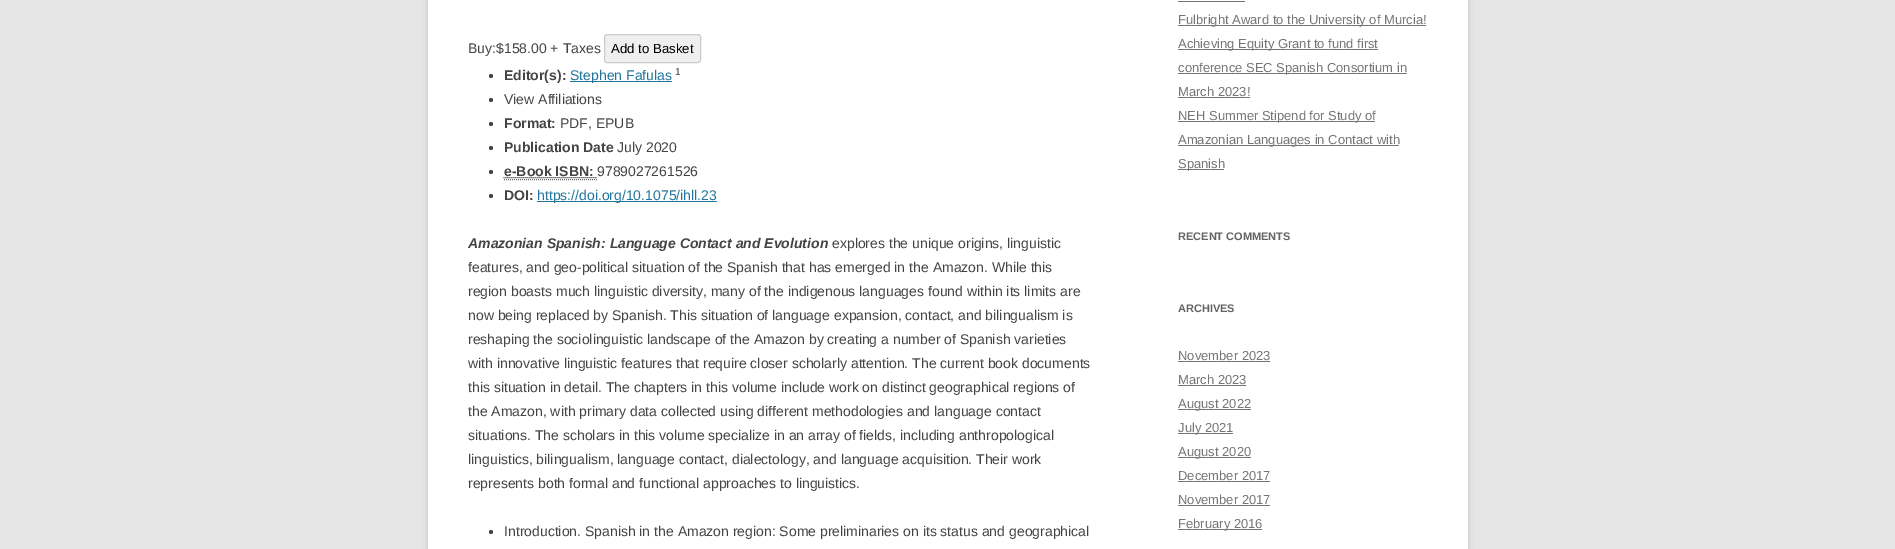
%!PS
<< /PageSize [1895 549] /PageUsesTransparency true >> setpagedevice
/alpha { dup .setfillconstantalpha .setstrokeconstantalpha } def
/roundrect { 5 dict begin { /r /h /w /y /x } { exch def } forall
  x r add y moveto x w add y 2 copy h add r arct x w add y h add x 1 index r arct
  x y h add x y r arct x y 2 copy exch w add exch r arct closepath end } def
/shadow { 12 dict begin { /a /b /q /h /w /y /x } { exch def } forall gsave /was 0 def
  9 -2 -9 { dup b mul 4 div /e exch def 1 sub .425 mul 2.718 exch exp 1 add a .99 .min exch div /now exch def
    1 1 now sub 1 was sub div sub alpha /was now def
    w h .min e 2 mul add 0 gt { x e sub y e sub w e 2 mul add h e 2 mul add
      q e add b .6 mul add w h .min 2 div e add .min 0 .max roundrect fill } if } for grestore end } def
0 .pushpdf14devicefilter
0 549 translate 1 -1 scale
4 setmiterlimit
0.902 setgray
0 0 1895 549 rectfill
0.392 setgray
428 -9 1040 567 0 3 0.3 shadow
1 setgray
428 0 1040 549 rectfill
/LiberationSans-Regular [14 0 0 -14 0 0] selectfont
0.267 setgray
468 53 moveto (Buy:$158.00 + Taxes) show
0.937 setgray
604.5 34.5 96 28 2.5 roundrect gsave fill grestore
0.8 setgray
stroke
/LiberationSans-Regular [13.25 0 0 -13.25 0 0] selectfont
0 setgray
611 53 moveto (Add to Basket) show
0.267 setgray
newpath 491 76 2 0 360 arc closepath fill
/LiberationSans-Bold [14 0 0 -14 0 0] selectfont
504 80 moveto (Editor\(s\):) show
0.129 0.459 0.608 setrgbcolor
570 81 102 1 rectfill
/LiberationSans-Regular [14 0 0 -14 0 0] selectfont
570 80 moveto (Stephen Fafulas) show
/LiberationSans-Regular [10 0 0 -10 0 0] selectfont
0.267 setgray
675 75 moveto (1) show
newpath 491 100 2 0 360 arc closepath fill
/LiberationSans-Regular [14 0 0 -14 0 0] selectfont
504 104 moveto (View Affiliations) show
newpath 491 124 2 0 360 arc closepath fill
/LiberationSans-Bold [14 0 0 -14 0 0] selectfont
504 128 moveto (Format:) show
/LiberationSans-Regular [14 0 0 -14 0 0] selectfont
560 128 moveto (PDF, EPUB) show
newpath 491 148 2 0 360 arc closepath fill
/LiberationSans-Bold [14 0 0 -14 0 0] selectfont
504 152 moveto (Publication Date) show
/LiberationSans-Regular [14 0 0 -14 0 0] selectfont
617 152 moveto (July 2020) show
newpath 491 172 2 0 360 arc closepath fill
/LiberationSans-Bold [14 0 0 -14 0 0] selectfont
504 176 moveto (e-Book ISBN:) show
0.4 setgray
[1 1] 0 setdash
newpath 504 179.5 moveto 597 179.5 lineto stroke
0.267 setgray
newpath 503.5 177.5 moveto 597 177.5 lineto stroke
/LiberationSans-Regular [14 0 0 -14 0 0] selectfont
597 176 moveto (9789027261526) show
newpath 491 196 2 0 360 arc closepath fill
/LiberationSans-Bold [14 0 0 -14 0 0] selectfont
504 200 moveto (DOI:) show
0.129 0.459 0.608 setrgbcolor
537 201 180 1 rectfill
/LiberationSans-Regular [14 0 0 -14 0 0] selectfont
537 200 moveto (https://doi.org/10.1075/ihll.23) show
/LiberationSans-BoldItalic [14 0 0 -14 0 0] selectfont
0.267 setgray
468 248 moveto (Amazonian Spanish: Language Contact and Evolution) show
/LiberationSans-Regular [14 0 0 -14 0 0] selectfont
832 248 moveto (explores the unique origins, linguistic) show
468 272 moveto (features, and geo-political situation of the Spanish that has emerged in the Amazon. While this) show
468 296 moveto (region boasts much linguistic diversity, many of the indigenous languages found within its limits are) show
468 320 moveto (now being replaced by Spanish. This situation of language expansion, contact, and bilingualism is) show
468 344 moveto (reshaping the sociolinguistic landscape of the Amazon by creating a number of Spanish varieties) show
468 368 moveto (with innovative linguistic features that require closer scholarly attention. The current book documents) show
468 392 moveto (this situation in detail. The chapters in this volume include work on distinct geographical regions of) show
468 416 moveto (the Amazon, with primary data collected using different methodologies and language contact) show
468 440 moveto (situations. The scholars in this volume specialize in an array of fields, including anthropological) show
468 464 moveto (linguistics, bilingualism, language contact, dialectology, and language acquisition. Their work) show
468 488 moveto (represents both formal and functional approaches to linguistics.) show
newpath 491 532 2 0 360 arc closepath fill
504 536 moveto (Introduction. Spanish in the Amazon region: Some preliminaries on its status and geographical) show
0.459 setgray
1178 1 67 1 rectfill
1178 25 248 1 rectfill
/LiberationSans-Regular [13 0 0 -13 0 0] selectfont
1178 24 moveto (Fulbright Award to the University of Murcia!) show
1178 49 200 1 rectfill
1178 48 moveto (Achieving Equity Grant to fund first) show
1178 73 229 1 rectfill
1178 72 moveto (conference SEC Spanish Consortium in) show
1178 96 moveto (March 2023!) show
1178 97 72 1 rectfill
1178 121 197 1 rectfill
1178 120 moveto (NEH Summer Stipend for Study of) show
1178 145 221 1 rectfill
1178 144 moveto (Amazonian Languages in Contact with) show
1178 169 46 1 rectfill
1178 168 moveto (Spanish) show
/LiberationSans-Bold [11 0 0 -11 0 0] selectfont
0.388 setgray
1178 240 moveto (RECENT COMMENTS) show
1178 312 moveto (ARCHIVES) show
/LiberationSans-Regular [13 0 0 -13 0 0] selectfont
0.459 setgray
1178 360 moveto (November 2023) show
1178 361 92 1 rectfill
1178 384 moveto (March 2023) show
1178 385 68 1 rectfill
1178 409 73 1 rectfill
1178 408 moveto (August 2022) show
1178 433 55 1 rectfill
1178 432 moveto (July 2021) show
1178 457 73 1 rectfill
1178 456 moveto (August 2020) show
1178 480 moveto (December 2017) show
1178 481 92 1 rectfill
1178 504 moveto (November 2017) show
1178 505 92 1 rectfill
1178 529 84 1 rectfill
1178 528 moveto (February 2016) show
.poppdf14devicefilter showpage
